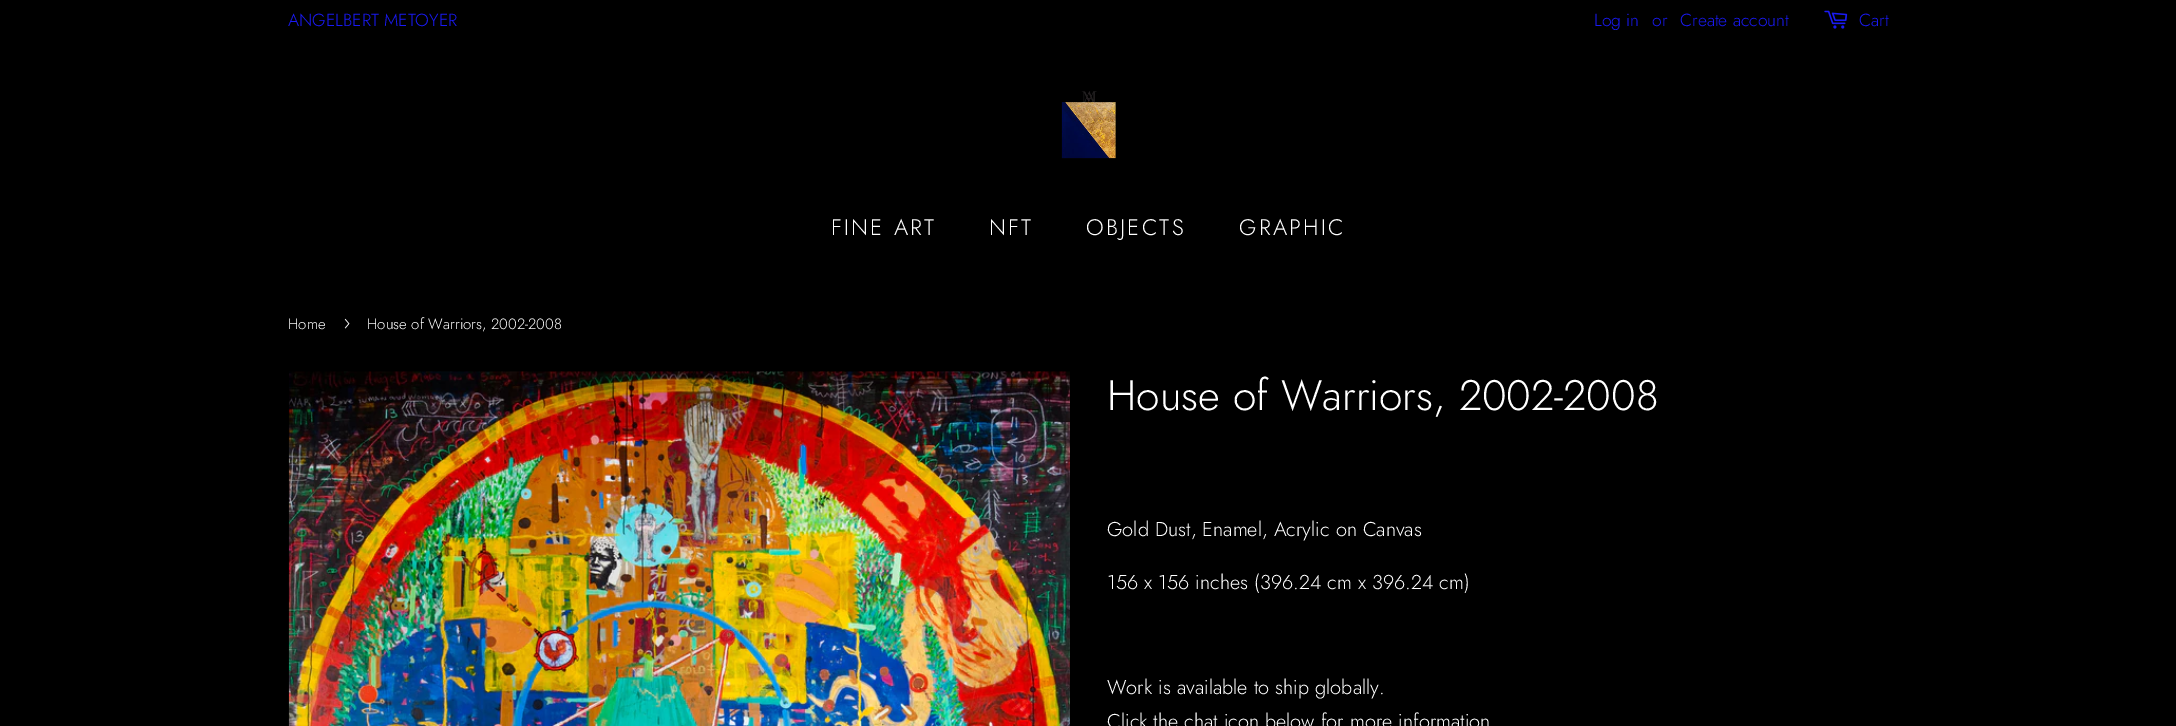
%!PS
<< /PageSize [2176 726] >> setpagedevice
/picture { 5 dict begin { /h /w /y /x /name } { exch def } forall
  gsave x y translate w h scale
  w h 8 [w 0 0 h 0 0] name (r) file false 3 colorimage grestore end } def
0 726 translate 1 -1 scale
4 setmiterlimit
0 setgray
0 0 2176 726 rectfill
/Jost-Light [17.5 0 0 -17.5 0 0] selectfont
0.102 0.102 0.957 setrgbcolor
288 26 moveto (ANGELBERT METOYER) show
1594 26 moveto (Log in) show
1652 26 moveto (or) show
1680 26 moveto (Create account) show
(img1.rgb) 1824 10 24 19 picture
1859 26 moveto (Cart) show
(img2.rgb) 1061 91 55 68 picture
/Jost-Light [22.5 0 0 -22.5 0 0] selectfont
1 setgray
831 235 moveto 2.25 0 (FINE ART) ashow
989 235 moveto 2.25 0 (NFT) ashow
1086 235 moveto 2.25 0 (OBJECTS) ashow
1239 235 moveto 2.25 0 (GRAPHIC) ashow
/Jost-Light [15 0 0 -15 0 0] selectfont
288 329 moveto (Home) show
/Jost-Light [21 0 0 -21 0 0] selectfont
343 329 moveto (›) show
/Jost-Light [15 0 0 -15 0 0] selectfont
367 329 moveto (House of Warriors, 2002-2008) show
(img3.rgb) 288 371 782 355 picture
/Jost-Light [42.5 0 0 -42.5 0 0] selectfont
1107 410 moveto (House of Warriors, 2002-2008) show
/Jost-Light [20 0 0 -20 0 0] selectfont
1107 536 moveto (Gold Dust, Enamel, Acrylic on Canvas) show
1107 589 moveto (156 x 156 inches \(396.24 cm x 396.24 cm\)) show
1107 694 moveto (Work is available to ship globally.) show
1107 728 moveto (Click the chat icon below for more information) show
showpage
